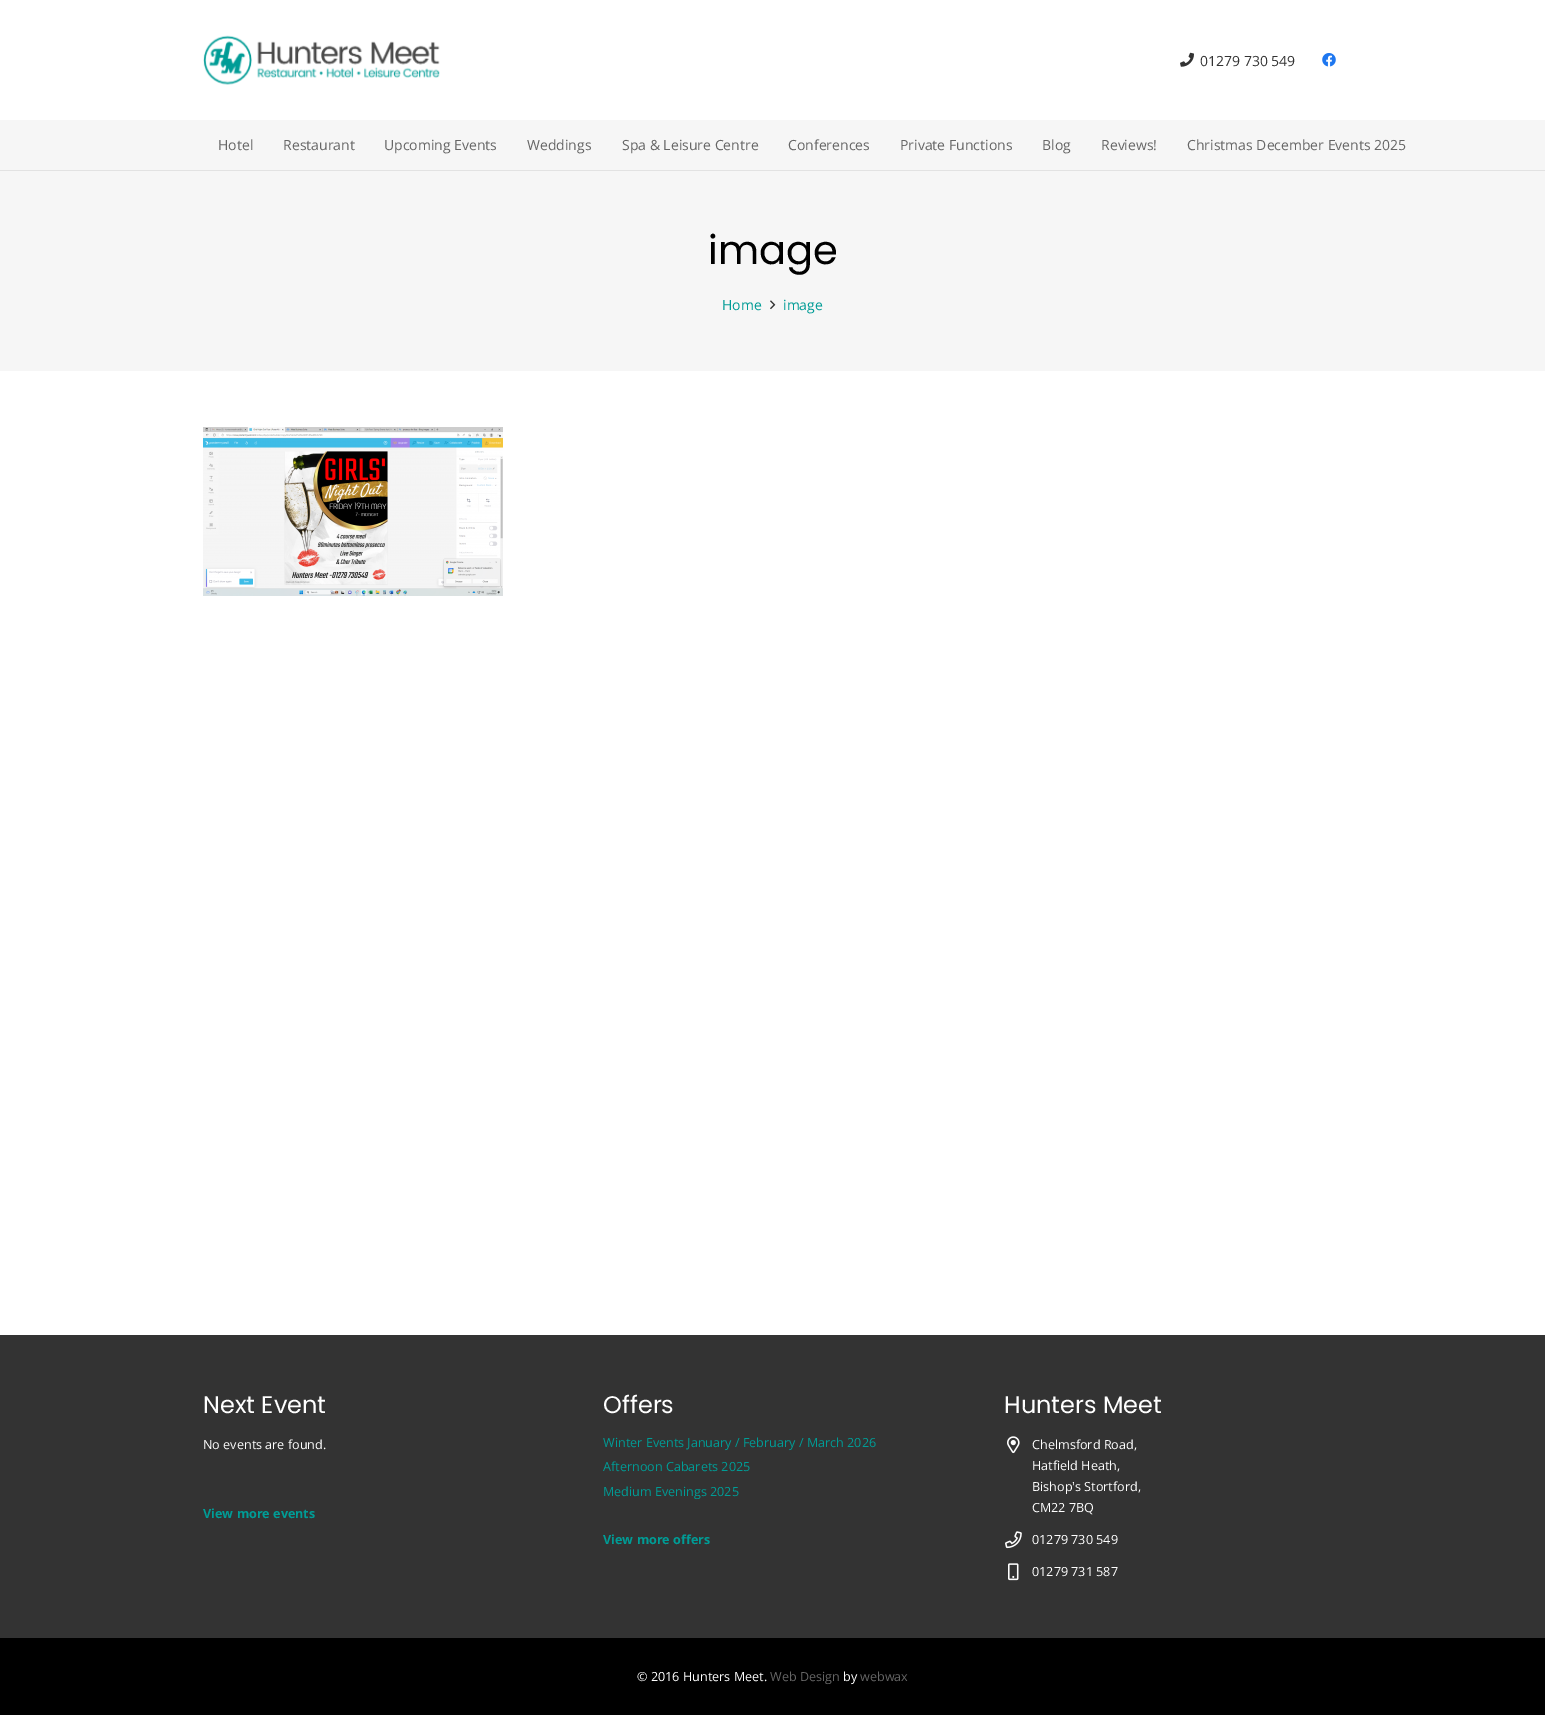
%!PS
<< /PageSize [1545 1715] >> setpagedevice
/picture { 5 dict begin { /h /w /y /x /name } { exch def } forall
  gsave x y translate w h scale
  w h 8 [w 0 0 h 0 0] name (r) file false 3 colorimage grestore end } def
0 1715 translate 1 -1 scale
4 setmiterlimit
1 setgray
0 0 1545 1715 rectfill
(img1.rgb) 203 35 237 50 picture
(img2.rgb) 1180 52 14 15 picture
/OpenSans-Regular [14 0 0 -14 0 0] selectfont
0.2 setgray
1200 66 moveto (01279 730 549) show
(img3.rgb) 1322 53 14 14 picture
0.886 setgray
0 170 1545 1 rectfill
0.965 setgray
0 120 1545 50 rectfill
0.4 setgray
218 150 moveto (Hotel) show
283 150 moveto (Restaurant) show
384 150 moveto (Upcoming Events) show
527 150 moveto (Weddings) show
622 150 moveto (Spa & Leisure Centre) show
788 150 moveto (Conferences) show
900 150 moveto (Private Functions) show
1042 150 moveto (Blog) show
1101 150 moveto (Reviews!) show
1187 150 moveto (Christmas December Events 2025) show
0.965 setgray
0 171 1545 200 rectfill
/Poppins-Regular [40 0 0 -40 0 0] selectfont
0 setgray
708 264 moveto (image) show
/OpenSans-Regular [14 0 0 -14 0 0] selectfont
0 0.612 0.588 setrgbcolor
722 310 moveto (Home) show
(img4.rgb) 770 300 6 10 picture
783 310 moveto (image) show
(img5.rgb) 203 427 300 169 picture
0.2 setgray
0 1335 1545 303 rectfill
/Poppins-Regular [24 0 0 -24 0 0] selectfont
1 setgray
203 1413 moveto (Next Event) show
/OpenSans-Regular [12.6 0 0 -12.6 0 0] selectfont
203 1449 moveto (No events are found.) show
/OpenSans-Bold [12.6 0 0 -12.6 0 0] selectfont
0 0.612 0.588 setrgbcolor
203 1518 moveto (View more events) show
/Poppins-Regular [24 0 0 -24 0 0] selectfont
1 setgray
603 1413 moveto (Offers) show
/OpenSans-Regular [12.6 0 0 -12.6 0 0] selectfont
0 0.612 0.588 setrgbcolor
603 1447 moveto (Winter Events January / February / March 2026) show
603 1471 moveto (Afternoon Cabarets 2025) show
603 1496 moveto (Medium Evenings 2025) show
/OpenSans-Bold [12.6 0 0 -12.6 0 0] selectfont
603 1544 moveto (View more offers) show
/Poppins-Regular [24 0 0 -24 0 0] selectfont
1 setgray
1004 1413 moveto (Hunters Meet) show
(img6.rgb) 1007 1436 13 18 picture
/OpenSans-Regular [12.6 0 0 -12.6 0 0] selectfont
1032 1449 moveto (Chelmsford Road,) show
1032 1470 moveto (Hatfield Heath,) show
1032 1491 moveto (Bishop's Stortford,) show
1032 1512 moveto (CM22 7BQ) show
(img7.rgb) 1005 1531 17 18 picture
1032 1544 moveto (01279 730 549) show
(img8.rgb) 1008 1563 11 18 picture
1032 1576 moveto (01279 731 587) show
0 setgray
0 1638 1545 77 rectfill
1 setgray
637 1681 moveto (© 2016 Hunters Meet.) show
0.4 setgray
770 1681 moveto (Web Design) show
1 setgray
843 1681 moveto (by) show
0.4 setgray
860 1681 moveto (webwax) show
showpage
